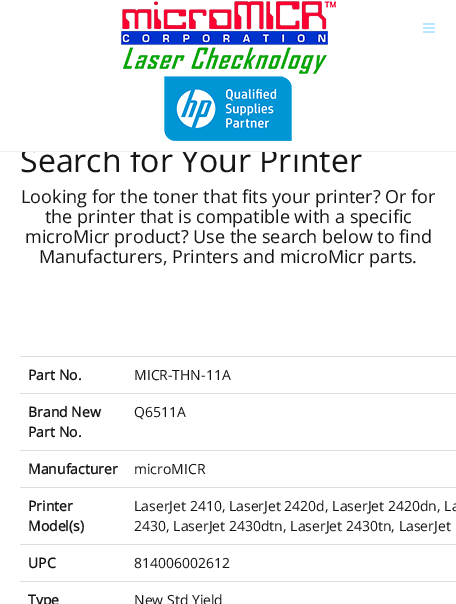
%!PS
<< /PageSize [456 604] >> setpagedevice
/picture { 5 dict begin { /h /w /y /x /name } { exch def } forall
  gsave x y translate w h scale
  w h 8 [w 0 0 h 0 0] name (r) file false 3 colorimage grestore end } def
0 604 translate 1 -1 scale
4 setmiterlimit
1 setgray
0 0 456 604 rectfill
/OpenSans-Regular [32 0 0 -32 0 0] selectfont
0.082 0.082 0.09 setrgbcolor
20 172 moveto (Search for Your Printer) show
1 setgray
23 147 302 4 rectfill
0.933 setgray
0 151 456 1 rectfill
(img1.rgb) 121 1 215 73 picture
(img2.rgb) 423 23 12 10 picture
(img3.rgb) 164 76 128 65 picture
/OpenSans-Regular [18 0 0 -18 0 0] selectfont
0.082 0.082 0.09 setrgbcolor
21 203 moveto (Looking for the toner that fits your printer? Or for) show
45 223 moveto (the printer that is compatible with a specific) show
25 243 moveto (microMicr product? Use the search below to find) show
39 263 moveto (Manufacturers, Printers and microMicr parts.) show
/OpenSans-Bold [14 0 0 -14 0 0] selectfont
28 380 moveto (Part No.) show
0.867 setgray
20 356 436 1 rectfill
/OpenSans-Regular [14 0 0 -14 0 0] selectfont
0.082 0.082 0.09 setrgbcolor
134 380 moveto (MICR-THN-11A) show
/OpenSans-Bold [14 0 0 -14 0 0] selectfont
28 417 moveto (Brand New) show
28 437 moveto (Part No.) show
0.867 setgray
20 393 436 1 rectfill
/OpenSans-Regular [14 0 0 -14 0 0] selectfont
0.082 0.082 0.09 setrgbcolor
134 417 moveto (Q6511A) show
/OpenSans-Bold [14 0 0 -14 0 0] selectfont
28 474 moveto (Manufacturer) show
0.867 setgray
20 450 436 1 rectfill
/OpenSans-Regular [14 0 0 -14 0 0] selectfont
0.082 0.082 0.09 setrgbcolor
134 474 moveto (microMICR) show
/OpenSans-Bold [14 0 0 -14 0 0] selectfont
28 511 moveto (Printer) show
28 531 moveto (Model\(s\)) show
0.867 setgray
20 487 436 1 rectfill
/OpenSans-Regular [14 0 0 -14 0 0] selectfont
0.082 0.082 0.09 setrgbcolor
134 511 moveto (LaserJet 2410, LaserJet 2420d, LaserJet 2420dn, La) show
134 531 moveto (2430, LaserJet 2430dtn, LaserJet 2430tn, LaserJet) show
/OpenSans-Bold [14 0 0 -14 0 0] selectfont
28 568 moveto (UPC) show
0.867 setgray
20 544 436 1 rectfill
/OpenSans-Regular [14 0 0 -14 0 0] selectfont
0.082 0.082 0.09 setrgbcolor
134 568 moveto (814006002612) show
/OpenSans-Bold [14 0 0 -14 0 0] selectfont
28 605 moveto (Type) show
0.867 setgray
20 581 436 1 rectfill
/OpenSans-Regular [14 0 0 -14 0 0] selectfont
0.082 0.082 0.09 setrgbcolor
134 605 moveto (New Std Yield) show
showpage
